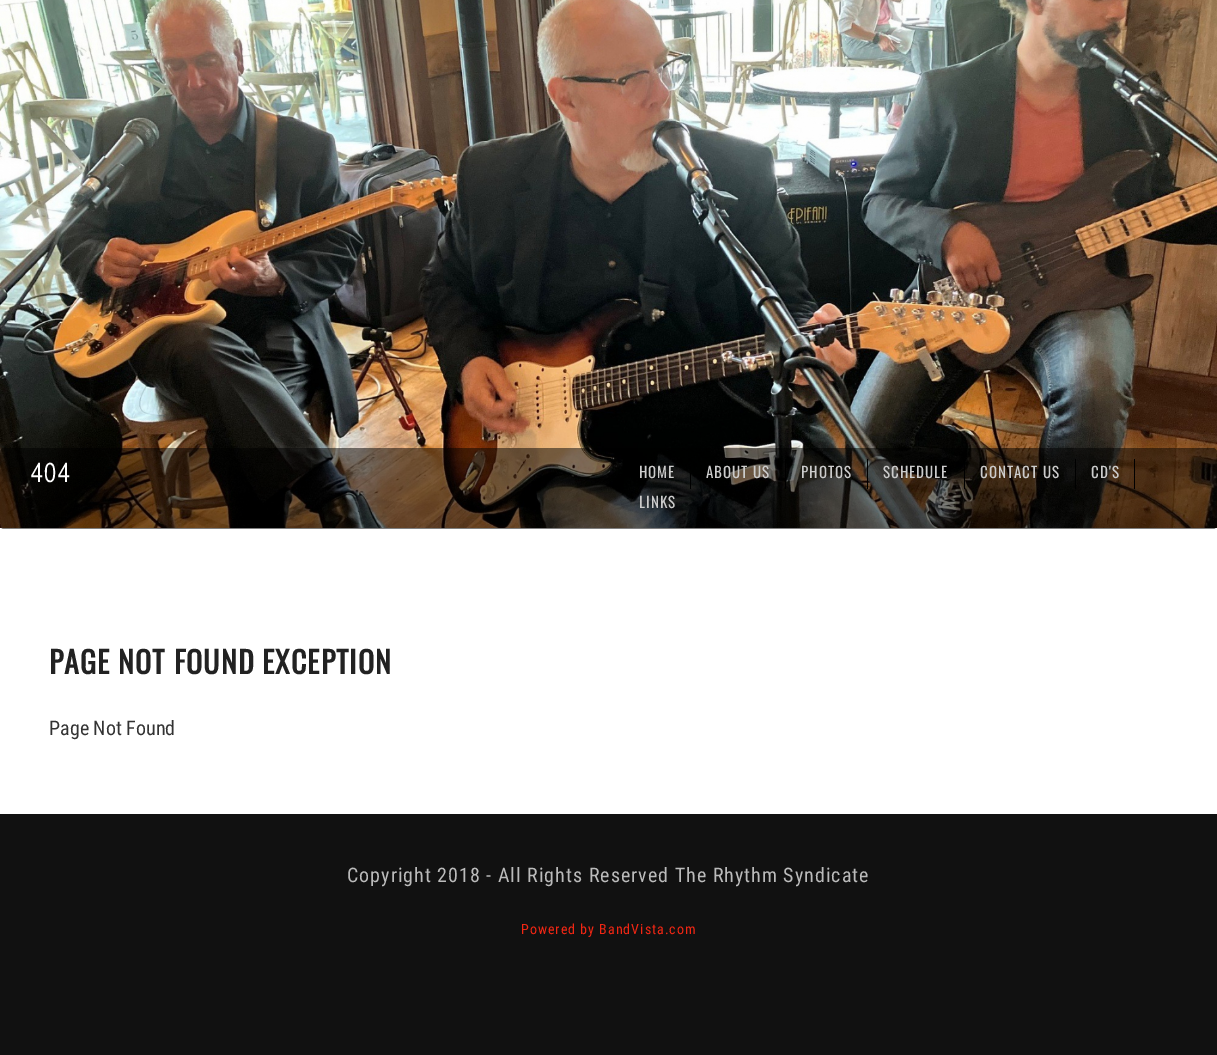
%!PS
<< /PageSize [1217 1055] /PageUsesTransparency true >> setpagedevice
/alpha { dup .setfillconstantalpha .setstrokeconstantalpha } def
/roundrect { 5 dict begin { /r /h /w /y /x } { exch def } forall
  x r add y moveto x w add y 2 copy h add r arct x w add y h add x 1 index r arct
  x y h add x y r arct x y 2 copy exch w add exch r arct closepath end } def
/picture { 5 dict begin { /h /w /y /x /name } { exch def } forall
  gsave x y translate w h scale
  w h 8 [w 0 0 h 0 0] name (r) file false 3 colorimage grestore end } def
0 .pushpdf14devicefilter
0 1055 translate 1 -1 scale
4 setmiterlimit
1 setgray
0 0 1217 1055 rectfill
(img1.rgb) 0 0 1217 528 picture
0.5 alpha
0 setgray
0 448 1217 81 4 roundrect fill
/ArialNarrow-Regular [27 0 0 -27 0 0] selectfont
1 alpha
1 setgray
31 482 moveto 1 0 (404) ashow
0 setgray
690 473 1 16 rectfill
/Oswald-Regular [15 0 0 -15 0 0] selectfont
0.8 setgray
639 478 moveto 1 0 (HOME) ashow
0 setgray
785 459 1 30 rectfill
0.8 setgray
706 478 moveto 1 0 (ABOUT US) ashow
0 setgray
867 459 1 30 rectfill
0.8 setgray
801 478 moveto 1 0 (PHOTOS) ashow
0 setgray
964 459 1 30 rectfill
0.8 setgray
883 478 moveto 1 0 (SCHEDULE) ashow
0 setgray
1075 459 1 30 rectfill
0.8 setgray
980 478 moveto 1 0 (CONTACT US) ashow
0 setgray
1134 459 1 30 rectfill
0.8 setgray
1091 478 moveto 1 0 (CD'S) ashow
639 508 moveto 1 0 (LINKS) ashow
/Oswald-Bold [30 0 0 -30 0 0] selectfont
0.133 setgray
49 674 moveto 1 0 (PAGE NOT FOUND EXCEPTION) ashow
/RobotoCondensed-Regular [20 0 0 -20 0 0] selectfont
0.2 setgray
49 735 moveto (Page Not Found) show
0.067 setgray
0 814 1217 241 rectfill
0.733 setgray
347 882 moveto 1 0 (Copyright 2018 - All Rights Reserved The Rhythm Syndicate) ashow
/RobotoCondensed-Regular [14 0 0 -14 0 0] selectfont
0.949 0.149 0.075 setrgbcolor
521 934 moveto 1 0 (Powered by BandVista.com) ashow
.poppdf14devicefilter showpage
